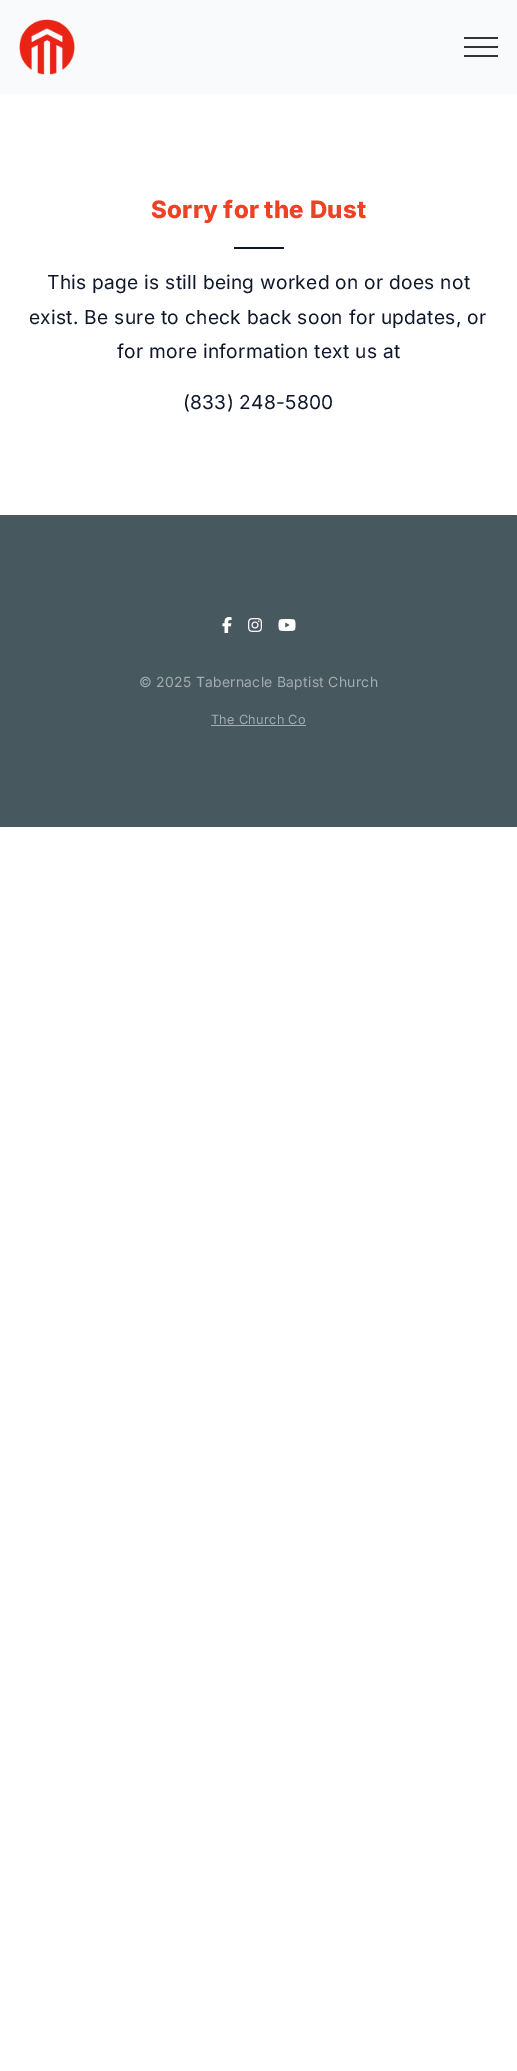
%!PS
<< /PageSize [517 2071] >> setpagedevice
/roundrect { 5 dict begin { /r /h /w /y /x } { exch def } forall
  x r add y moveto x w add y 2 copy h add r arct x w add y h add x 1 index r arct
  x y h add x y r arct x y 2 copy exch w add exch r arct closepath end } def
/picture { 5 dict begin { /h /w /y /x /name } { exch def } forall
  gsave x y translate w h scale
  w h 8 [w 0 0 h 0 0] name (r) file false 3 colorimage grestore end } def
0 2071 translate 1 -1 scale
4 setmiterlimit
1 setgray
0 0 517 2071 rectfill
0.973 0.98 0.988 setrgbcolor
0 0 517 94 rectfill
(img1.rgb) 19 19 56 56 picture
0.204 setgray
464 37 34 2 rectfill
464 46 34 2 rectfill
464 55 34 2 rectfill
/Inter-ExtraBold [24 0 0 -24 0 0] selectfont
0.937 0.255 0.145 setrgbcolor
151 218 moveto 0.25 0 (Sorry for the Dust) ashow
0.059 0.09 0.165 setrgbcolor
234 247 50 2 rectfill
/Inter-Regular [19.2 0 0 -19.2 0 0] selectfont
47 289 moveto 0.25 0 (This page is still being worked on or does not) ashow
29 324 moveto 0.25 0 (exist. Be sure to check back soon for updates, or) ashow
117 358 moveto 0.25 0 (for more information text us at) ashow
183 409 moveto 0.25 0 (\(833\) 248-5800) ashow
0.278 0.345 0.373 setrgbcolor
0 515 517 312 1 roundrect fill
(img2.rgb) 222 617 10 16 picture
(img3.rgb) 248 618 14 14 picture
(img4.rgb) 278 619 18 12 picture
/Inter-Regular [14 0 0 -14 0 0] selectfont
0.639 0.675 0.686 setrgbcolor
139 687 moveto 0.25 0 (© 2025 Tabernacle Baptist Church) ashow
/Inter-Regular [12.75 0 0 -12.75 0 0] selectfont
211 724 moveto 0.25 0 (The Church Co) ashow
211 725 95 1 rectfill
showpage
